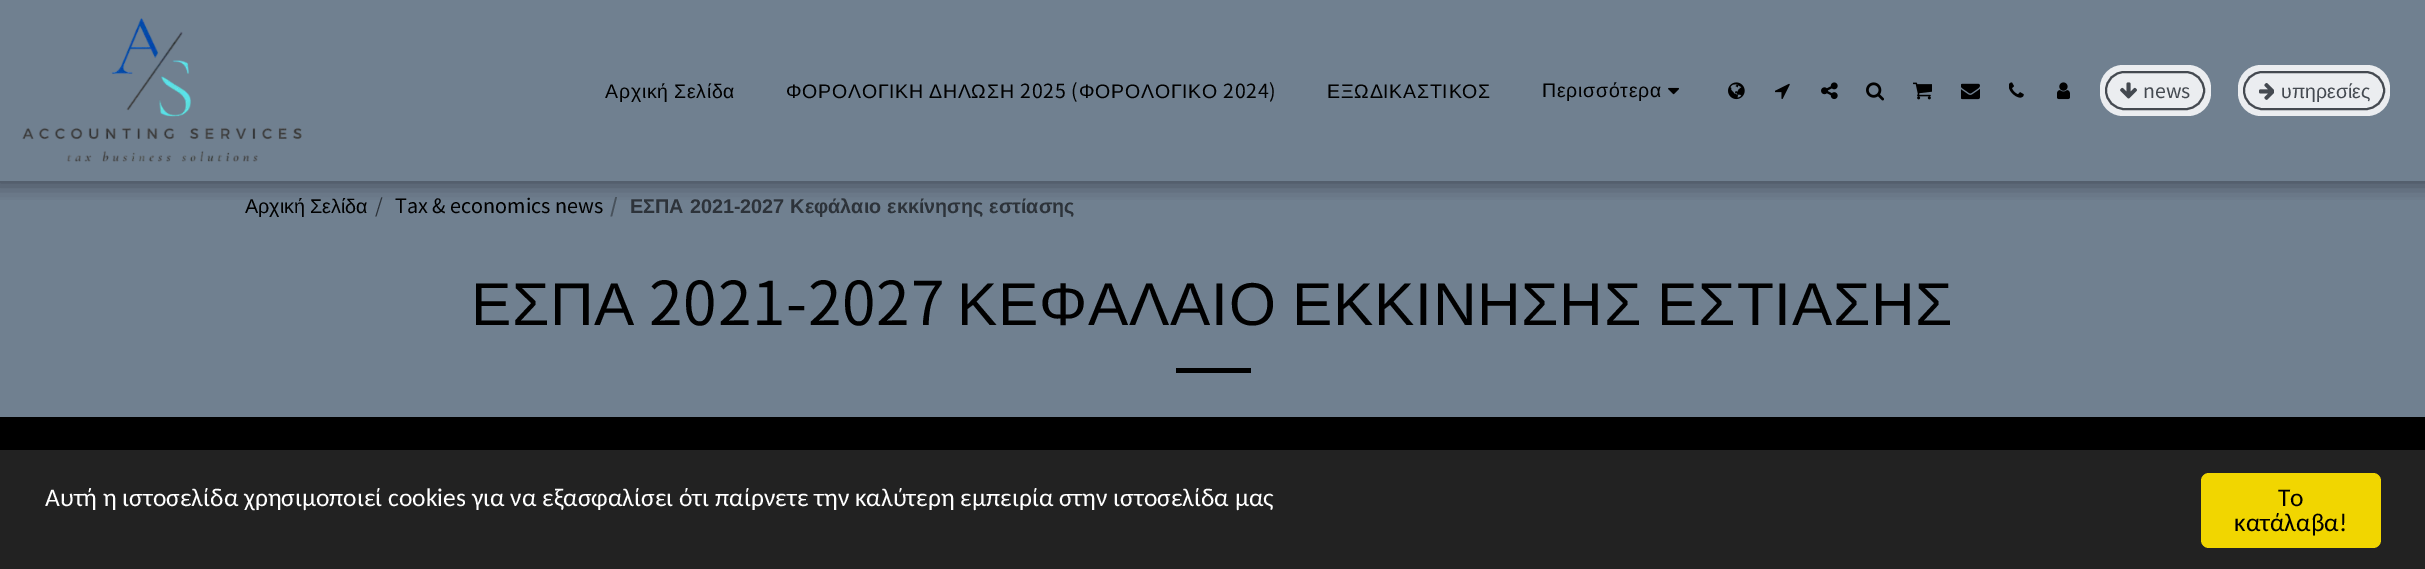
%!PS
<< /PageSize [2425 569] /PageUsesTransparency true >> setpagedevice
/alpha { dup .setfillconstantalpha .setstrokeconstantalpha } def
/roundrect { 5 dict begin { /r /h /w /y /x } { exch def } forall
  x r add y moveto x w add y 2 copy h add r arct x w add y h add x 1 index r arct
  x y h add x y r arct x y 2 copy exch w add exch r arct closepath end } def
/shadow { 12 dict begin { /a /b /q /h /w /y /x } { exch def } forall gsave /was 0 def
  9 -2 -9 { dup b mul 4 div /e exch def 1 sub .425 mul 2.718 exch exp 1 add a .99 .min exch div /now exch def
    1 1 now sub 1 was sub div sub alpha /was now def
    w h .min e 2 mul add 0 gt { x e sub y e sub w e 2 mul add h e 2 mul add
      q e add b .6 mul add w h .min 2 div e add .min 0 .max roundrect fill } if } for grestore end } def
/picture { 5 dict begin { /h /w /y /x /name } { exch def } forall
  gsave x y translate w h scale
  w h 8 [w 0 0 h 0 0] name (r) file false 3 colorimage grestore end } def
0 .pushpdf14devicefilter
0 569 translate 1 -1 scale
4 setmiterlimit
0.439 0.502 0.565 setrgbcolor
0 0 2425 569 rectfill
gsave
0 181 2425 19 rectclip
0 setgray
-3 0 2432 186 0 9 0.35 shadow
grestore
0 180 2425 1 rectfill
(img1.rgb) 22 18 280 144 picture
/LiberationSans-Regular [19.5 0 0 -19.5 0 0] selectfont
0 setgray
605 98 moveto -1 0 32 0.75 0 (Αρχική Σελίδα) awidthshow
786 98 moveto 0.75 0 (ΦΟΡΟΛΟΓΙΚΗ) ashow
929 98 moveto 0.75 0 (ΔΗΛΩΣΗ) ashow
/NotoSansJP-Regular [19.5 0 0 -19.5 0 0] selectfont
1020 98 moveto 0.75 0 (2025 \() ashow
/LiberationSans-Regular [19.5 0 0 -19.5 0 0] selectfont
1079 98 moveto 0.75 0 (ΦΟΡΟΛΟΓΙΚΟ) ashow
/NotoSansJP-Regular [19.5 0 0 -19.5 0 0] selectfont
1223 98 moveto 0.75 0 (2024\)) ashow
/LiberationSans-Regular [19.5 0 0 -19.5 0 0] selectfont
1327 98 moveto 0.75 0 (ΕΞΩΔΙΚΑΣΤΙΚΟΣ) ashow
1542 97 moveto 0.75 0 (Περισσότερα) ashow
(img2.rgb) 1668 87 11 8 picture
(img3.rgb) 1728 82 17 18 picture
(img4.rgb) 1775 83 15 16 picture
(img5.rgb) 1821 82 17 18 picture
(img6.rgb) 1866 82 18 19 picture
(img7.rgb) 1913 82 19 18 picture
(img8.rgb) 1961 83 19 17 picture
(img9.rgb) 2009 82 15 16 picture
(img10.rgb) 2057 82 13 18 picture
0.922 0.929 0.941 setrgbcolor
2100 65 111 51 23 roundrect fill
0.267 0.286 0.314 setrgbcolor
2 setlinewidth
2106 72 98 37 18.5 roundrect stroke
(img11.rgb) 2120 82 17 17 picture
/NotoSansJP-Regular [19.5 0 0 -19.5 0 0] selectfont
2143 98 moveto (news) show
0.922 0.929 0.941 setrgbcolor
2238 65 152 51 23 roundrect fill
0.267 0.286 0.314 setrgbcolor
2244 72 140 37 18.5 roundrect stroke
(img12.rgb) 2259 83 15 17 picture
/LiberationSans-Regular [19.5 0 0 -19.5 0 0] selectfont
2281 98 moveto (υπηρεσίες) show
0 setgray
0 417 2425 33 rectfill
/LiberationSans-Regular [19.8 0 0 -19.8 0 0] selectfont
245 213 moveto -1 0 32 (Αρχική Σελίδα) widthshow
/NotoSansJP-Regular [19.8 0 0 -19.8 0 0] selectfont
0.176 0.2 0.227 setrgbcolor
375 213 moveto (/) show
0 setgray
395 213 moveto (Tax & economics news) show
/NotoSansJP-Bold [19.8 0 0 -19.8 0 0] selectfont
0.282 0.322 0.361 setrgbcolor
610 213 moveto (/) show
/LiberationSans-Bold [19.8 0 0 -19.8 0 0] selectfont
0.176 0.2 0.227 setrgbcolor
630 213 moveto 0.5 0 32 (ΕΣΠΑ 2021-2027 Κεφάλαιο εκκίνησης εστίασης) widthshow
/LiberationSans-Regular [60.4 0 0 -60.4 0 0] selectfont
0 setgray
471 325 moveto 0.75 0 (ΕΣΠΑ) ashow
/NotoSansJP-Regular [60.4 0 0 -60.4 0 0] selectfont
649 325 moveto 0.75 0 (2021-2027) ashow
/LiberationSans-Regular [60.4 0 0 -60.4 0 0] selectfont
957 325 moveto -2 0 32 0.75 0 (ΚΕΦΑΛΑΙΟ ΕΚΚΙΝΗΣΗΣ ΕΣΤΙΑΣΗΣ) awidthshow
1176 368 75 5 rectfill
0.133 setgray
0 450 2425 119 rectfill
/Carlito-Regular [25.5 0 0 -25.5 0 0] selectfont
1 setgray
45 506 moveto (Αυτή η ιστοσελίδα χρησιμοποιεί cookies για να εξασφαλίσει ότι παίρνετε την καλύτερη εμπειρία στην ιστοσελίδα μας) show
0.945 0.839 0 setrgbcolor
2201 473 180 75 8 roundrect fill
0 setgray
2278 506 moveto (Το) show
2234 531 moveto (κατάλαβα!) show
.poppdf14devicefilter showpage
